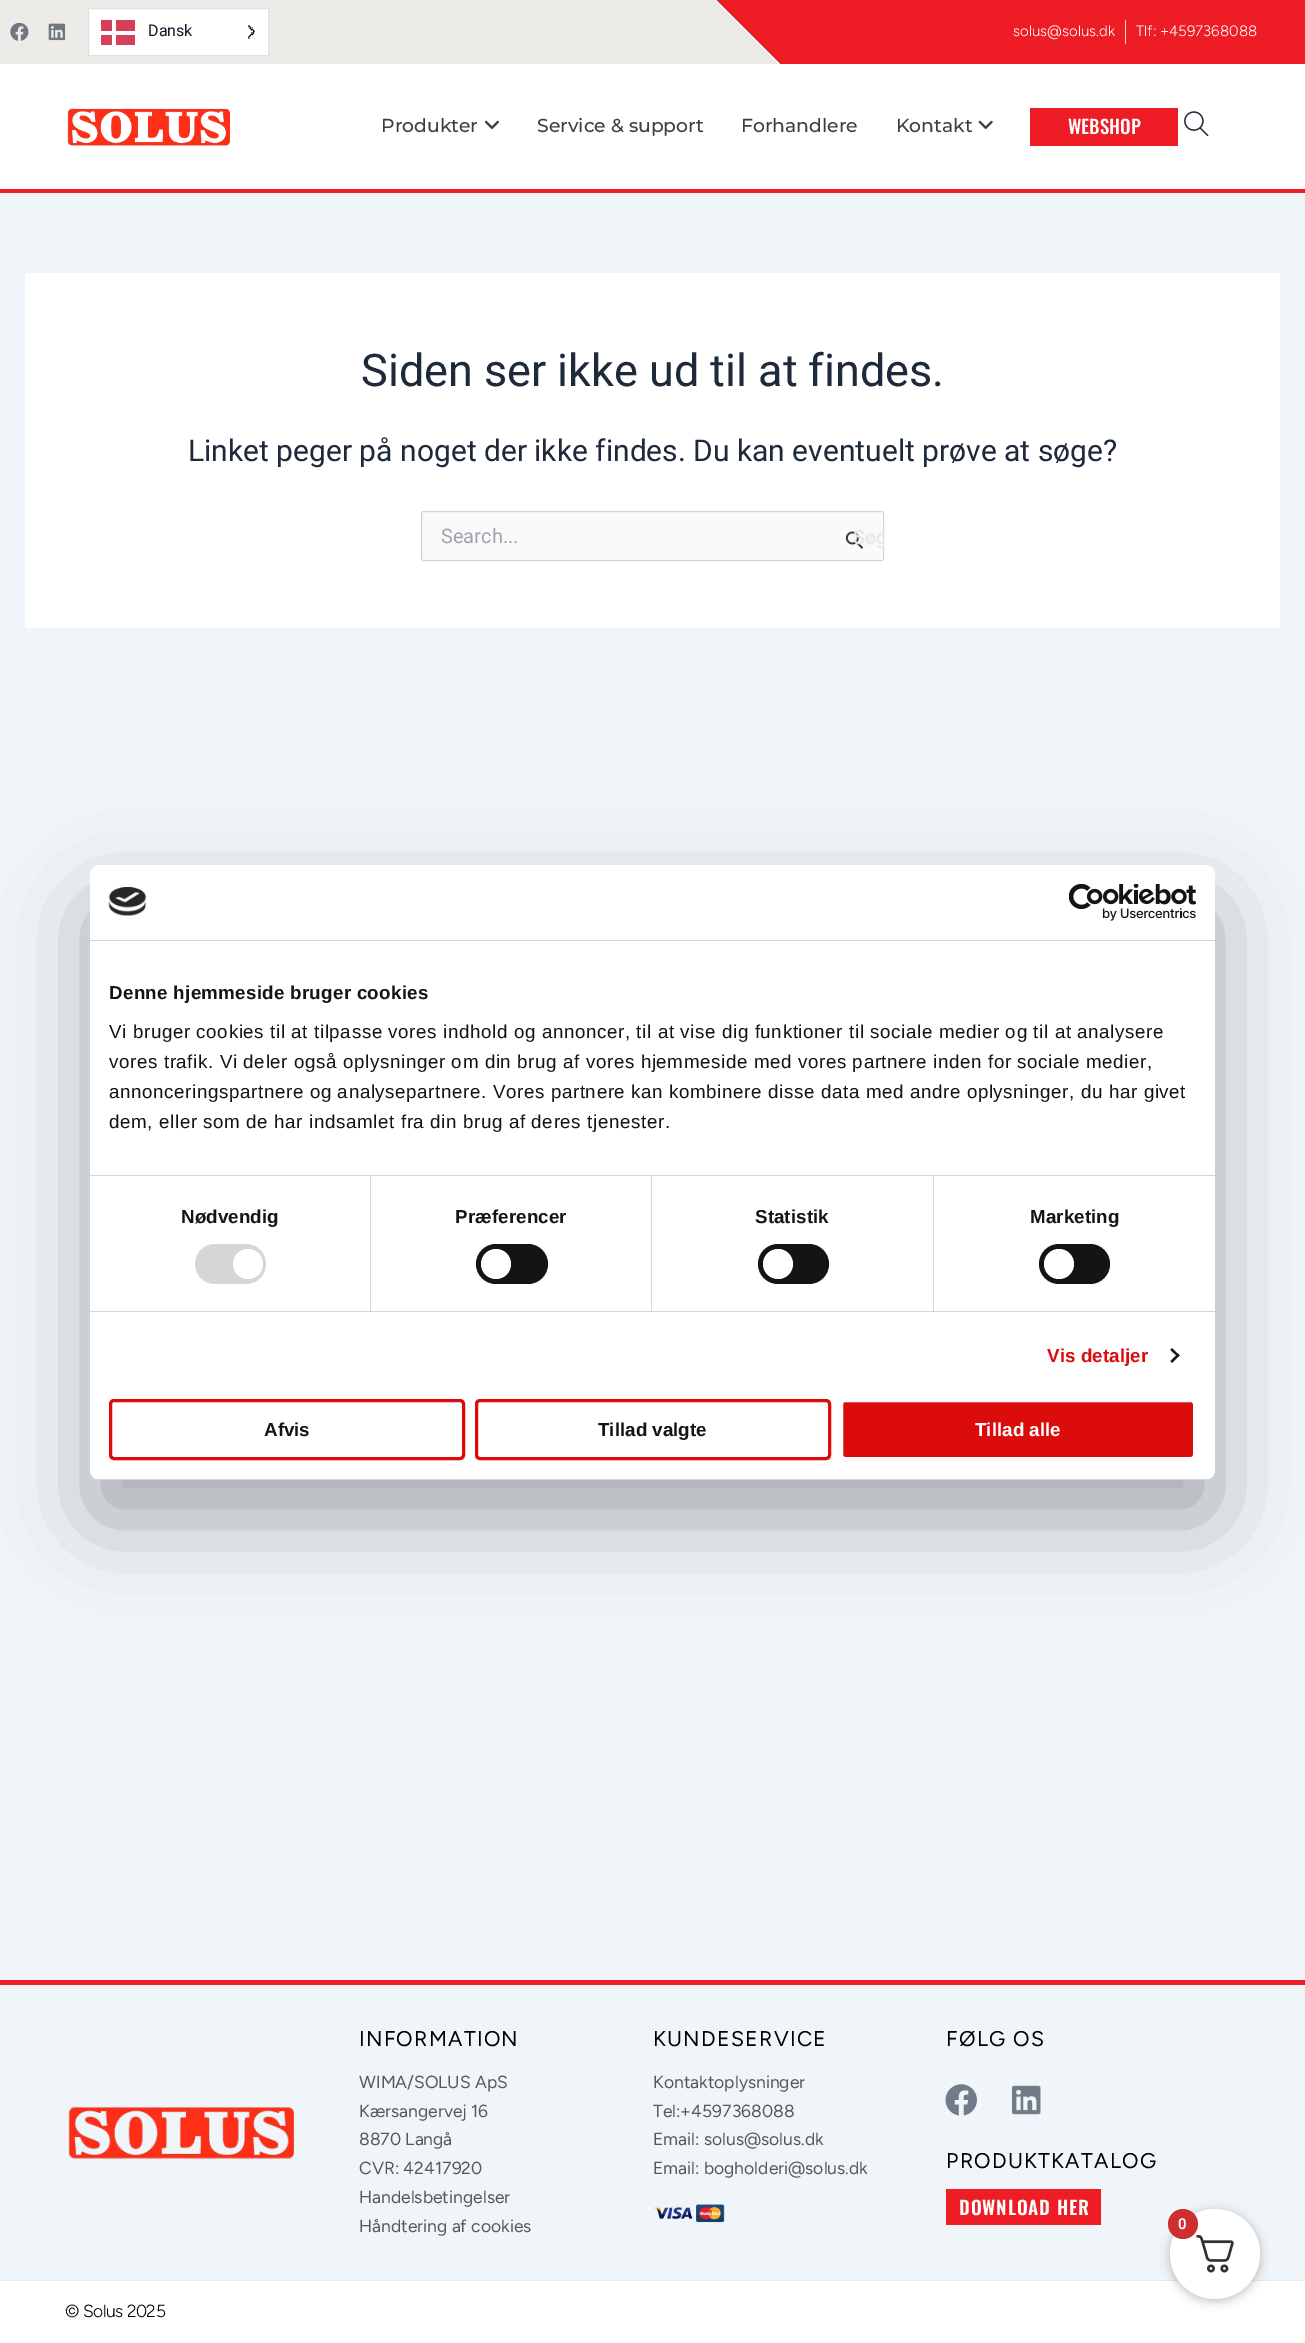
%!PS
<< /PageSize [1305 2343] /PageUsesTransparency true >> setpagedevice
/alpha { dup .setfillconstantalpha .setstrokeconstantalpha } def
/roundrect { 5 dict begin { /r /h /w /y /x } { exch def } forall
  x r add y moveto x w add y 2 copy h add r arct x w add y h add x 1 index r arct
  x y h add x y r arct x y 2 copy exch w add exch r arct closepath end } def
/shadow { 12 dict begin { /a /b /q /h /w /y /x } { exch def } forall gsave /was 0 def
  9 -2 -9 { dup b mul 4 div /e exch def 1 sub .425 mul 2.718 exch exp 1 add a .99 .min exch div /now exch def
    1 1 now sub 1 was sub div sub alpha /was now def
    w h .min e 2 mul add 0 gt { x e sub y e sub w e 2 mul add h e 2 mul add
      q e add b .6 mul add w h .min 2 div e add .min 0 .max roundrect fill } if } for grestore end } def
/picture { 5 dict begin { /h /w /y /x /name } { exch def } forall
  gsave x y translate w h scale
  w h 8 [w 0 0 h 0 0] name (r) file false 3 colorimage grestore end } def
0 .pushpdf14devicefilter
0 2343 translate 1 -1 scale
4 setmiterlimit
0.941 0.961 0.98 setrgbcolor
0 0 1305 2343 rectfill
gsave newpath 0 0 moveto 1305 0 lineto 1305 64 lineto 0 64 lineto closepath clip newpath
<< /ShadingType 2 /ColorSpace /DeviceRGB /Coords [310 374 995 -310] /Extend [true true] /Function << /FunctionType 3 /Domain [0 1] /Functions [<< /FunctionType 2 /Domain [0 1] /C0 [0.925 0.922 0.91] /C1 [0.925 0.922 0.91] /N 1 >> << /FunctionType 2 /Domain [0 1] /C0 [0.933 0.11 0.145] /C1 [0.933 0.11 0.145] /N 1 >>] /Bounds [0.57] /Encode [0 1 0 1] >> >> shfill grestore
(img1.rgb) 10 23 19 18 picture
(img2.rgb) 48 23 18 18 picture
1 setgray
newpath 88.5 8.5 moveto 268.5 8.5 lineto 268.5 55.5 lineto 88.5 55.5 lineto closepath gsave fill grestore
0.878 setgray
stroke
0.827 0.251 0.345 setrgbcolor
101 20 34 25 rectfill
1 setgray
112 20 4 25 rectfill
101 31 34 4 rectfill
/Roboto-Regular [16 0 0 -16 0 0] selectfont
0.067 0.094 0.153 setrgbcolor
148 36 moveto (Dansk) show
(img3.rgb) 248 25 7 14 picture
/Figtree-Light [15 0 0 -15 0 0] selectfont
1 setgray
1013 36 moveto (solus@solus.dk) show
0.867 setgray
1125 20 1 24 rectfill
1 setgray
1136 36 moveto (Tlf: +4597368088) show
0 64 1305 125 rectfill
0.933 0.11 0.145 setrgbcolor
0 189 1305 4 rectfill
(img4.rgb) 67 107 163 40 picture
/Montserrat-Medium [18.75 0 0 -18.75 0 0] selectfont
0.247 0.239 0.239 setrgbcolor
381 132 moveto (Produkter) show
(img5.rgb) 485 120 14 9 picture
537 132 moveto (Service & support) show
741 132 moveto (Forhandlere) show
896 132 moveto (Kontakt) show
(img6.rgb) 978 120 15 9 picture
0.933 0.11 0.145 setrgbcolor
1030 108 148 38 rectfill
/Oswald-Medium [18.75 0 0 -18.75 0 0] selectfont
1 setgray
1068 134 moveto (WEBSHOP) show
(img7.rgb) 1184 111 25 25 picture
25 273 1255 355 rectfill
/Roboto-Regular [45 0 0 -45 0 0] selectfont
0.118 0.161 0.231 setrgbcolor
361 386 moveto (Siden ser ikke ud til at findes.) show
/Roboto-Regular [30 0 0 -30 0 0] selectfont
188 461 moveto (Linket peger på noget der ikke findes. Du kan eventuelt prøve at søge?) show
0.98 setgray
421.5 511.5 462 49 2 roundrect gsave fill grestore
0.82 0.835 0.859 setrgbcolor
stroke
/Roboto-Regular [20 0 0 -20 0 0] selectfont
0.612 0.639 0.686 setrgbcolor
441 543 moveto (Search...) show
(img8.rgb) 845 531 18 18 picture
gsave
828 511 56 53 2.5 roundrect clip newpath
/Roboto-Medium [20 0 0 -20 0 0] selectfont
0.906 0.906 0.91 setrgbcolor
853 544 moveto (Søg) show
grestore
0.933 0.11 0.145 setrgbcolor
0 1980 1305 5 rectfill
(img9.rgb) 68 2105 226 55 picture
/Figtree-Regular [21.25 0 0 -21.25 0 0] selectfont
0 setgray
359 2046 moveto 1.25 0 (INFORMATION) ashow
/Figtree-Regular [17.5 0 0 -17.5 0 0] selectfont
0.329 0.349 0.373 setrgbcolor
359 2088 moveto (WIMA/SOLUS ApS) show
359 2117 moveto (Kærsangervej 16) show
359 2145 moveto (8870 Langå) show
359 2174 moveto (CVR: 42417920) show
359 2203 moveto (Handelsbetingelser) show
359 2232 moveto (Håndtering af cookies) show
/Figtree-Regular [21.25 0 0 -21.25 0 0] selectfont
0 setgray
653 2046 moveto 1.25 0 (KUNDESERVICE) ashow
/Figtree-Regular [17.5 0 0 -17.5 0 0] selectfont
0.329 0.349 0.373 setrgbcolor
653 2088 moveto (Kontaktoplysninger) show
653 2117 moveto (Tel:+4597368088) show
653 2145 moveto (Email: solus@solus.dk) show
653 2174 moveto (Email: bogholderi@solus.dk) show
(img10.rgb) 653 2204 72 19 picture
/Figtree-Regular [21.25 0 0 -21.25 0 0] selectfont
0 setgray
946 2046 moveto 1.25 0 (FØLG OS) ashow
(img11.rgb) 945 2084 32 32 picture
(img12.rgb) 1012 2085 29 30 picture
946 2168 moveto 1.25 0 (PRODUKTKATALOG) ashow
0.933 0.11 0.145 setrgbcolor
946 2189 155 36 rectfill
/Oswald-SemiBold [18.75 0 0 -18.75 0 0] selectfont
1 setgray
959 2215 moveto 0.9 0 (DOWNLOAD HER) ashow
0 2281 1305 62 rectfill
0.922 setgray
0 2280 1305 1 rectfill
/Figtree-Light [17.5 0 0 -17.5 0 0] selectfont
0 setgray
65 2317 moveto -0.5 0 (© Solus 2025) ashow
90 905 1125 615 10 42.5 0.3 shadow
1 setgray
90 865 1125 615 10 roundrect fill
0.839 setgray
90 940 1125 1 rectfill
(img13.rgb) 108 887 39 29 picture
(img14.rgb) 1069 884 127 37 picture
90 1175 1125 1 rectfill
/LiberationSans-Bold [18.75 0 0 -18.75 0 0] selectfont
0.078 setgray
109 999 moveto 0.3 0 (Denne hjemmeside bruger cookies) ashow
/LiberationSans-Regular [18.75 0 0 -18.75 0 0] selectfont
109 1038 moveto 0.62 0 (Vi bruger cookies til at tilpasse vores indhold og annoncer, til at vise dig funktioner til sociale medier og til at analysere) ashow
109 1068 moveto 0.62 0 (vores trafik. Vi deler også oplysninger om din brug af vores hjemmeside med vores partnere inden for sociale medier,) ashow
109 1098 moveto 0.62 0 (annonceringspartnere og analysepartnere. Vores partnere kan kombinere disse data med andre oplysninger, du har givet) ashow
109 1128 moveto 0.62 0 (dem, eller som de har indsamlet fra din brug af deres tjenester.) ashow
0.839 setgray
90 1311 1125 1 rectfill
370 1176 1 135 rectfill
/LiberationSans-Bold [18.75 0 0 -18.75 0 0] selectfont
0.078 setgray
181 1223 moveto 0.1 0 (Nødvendig) ashow
0.839 setgray
195 1244 71 40 20 roundrect fill
1 setgray
newpath 248 1264 15 0 360 arc closepath fill
0.839 setgray
651 1176 1 135 rectfill
0.078 setgray
455 1223 moveto 0.1 0 (Præferencer) ashow
476 1244 72 40 20 roundrect fill
1 setgray
newpath 496 1264 15 0 360 arc closepath fill
0.839 setgray
933 1176 1 135 rectfill
0.078 setgray
755 1223 moveto 0.1 0 (Statistik) ashow
758 1244 71 40 20 roundrect fill
1 setgray
newpath 778 1264 15 0 360 arc closepath fill
0.078 setgray
1030 1223 moveto 0.1 0 (Marketing) ashow
1039 1244 71 40 20 roundrect fill
1 setgray
newpath 1059 1264 15 0 360 arc closepath fill
0.867 0.047 0.047 setrgbcolor
1047 1362 moveto 0.1 0 (Vis detaljer) ashow
0.078 setgray
newpath 1172 1348 moveto 1179.5 1355.5 lineto 1178 1357 lineto 1170.5 1350 lineto closepath fill
newpath 1178 1353.5 moveto 1179.5 1355.5 lineto 1172 1363 lineto 1170.5 1361 lineto closepath fill
gsave
90 865 1125 615 10 roundrect clip newpath
0.839 setgray
90 1479 1125 1 rectfill
grestore
0 setgray
109 1400 356 61 5 1 0.05 shadow
1 setgray
110.5 1400.5 353 58 3.5 roundrect gsave fill grestore
0.867 0.047 0.047 setrgbcolor
3 setlinewidth
stroke
0.078 setgray
264 1436 moveto (Afvis) show
0 setgray
475 1400 356 61 5 1 0.05 shadow
1 setgray
476.5 1400.5 353 58 3.5 roundrect gsave fill grestore
0.867 0.047 0.047 setrgbcolor
stroke
0.078 setgray
598 1436 moveto (Tillad valgte) show
0 setgray
840 1400 356 61 5 1 0.05 shadow
0.867 0.047 0.047 setrgbcolor
841.5 1400.5 353 58 3.5 roundrect gsave fill grestore
1 setgray
stroke
975 1436 moveto (Tillad alle) show
0 setgray
1170 2211 90 90 45 5 0.25 shadow
1 setgray
newpath 1215 2254 45 0 360 arc closepath fill
(img15.rgb) 1196 2235 38 38 picture
0.812 0.18 0.18 setrgbcolor
newpath 1183 2224 15 0 360 arc closepath fill
/Roboto-SemiBold [15 0 0 -15 0 0] selectfont
1 setgray
1178 2229 moveto (0) show
.poppdf14devicefilter showpage
